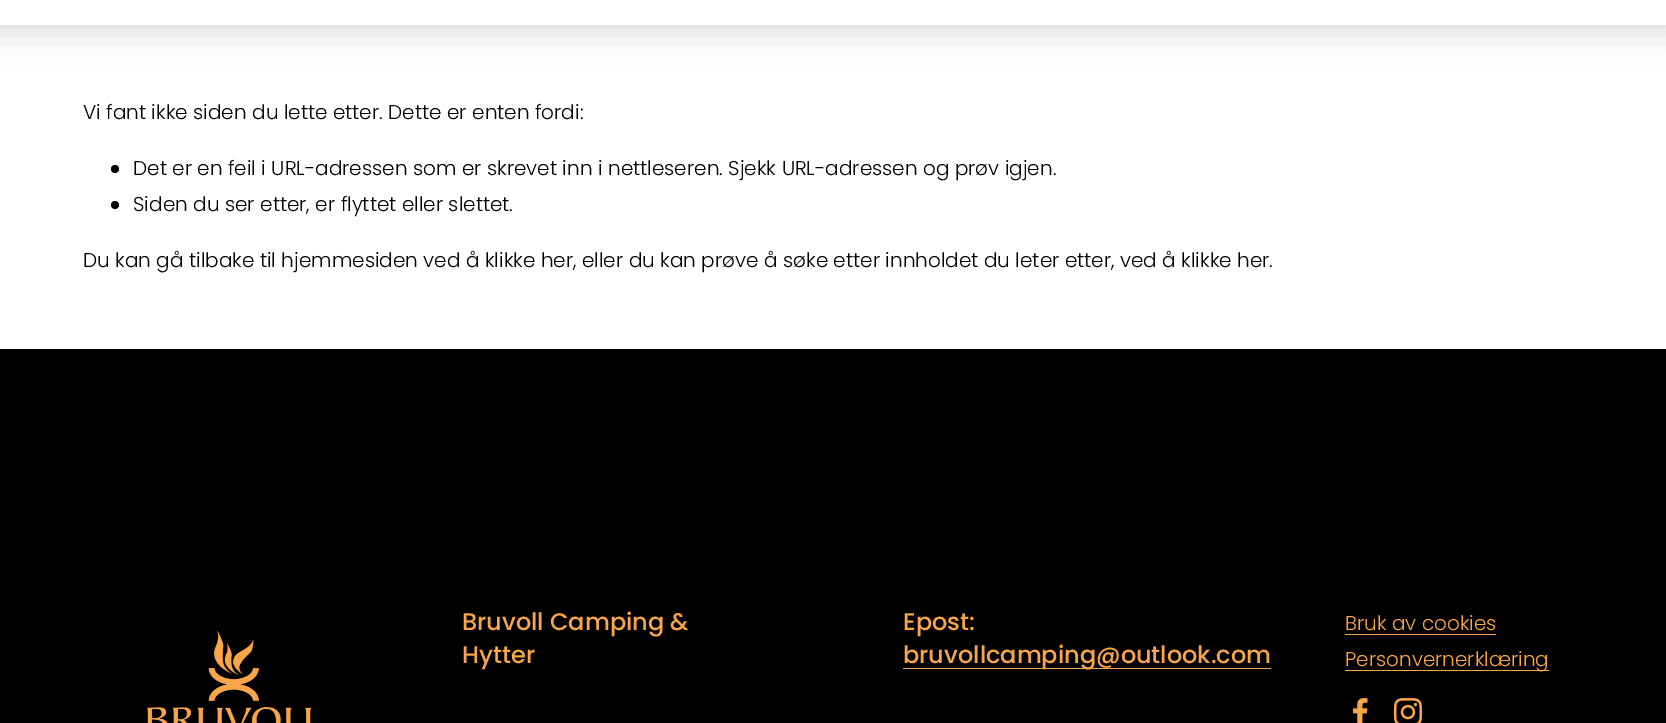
%!PS
<< /PageSize [1666 723] /PageUsesTransparency true >> setpagedevice
/alpha { dup .setfillconstantalpha .setstrokeconstantalpha } def
/roundrect { 5 dict begin { /r /h /w /y /x } { exch def } forall
  x r add y moveto x w add y 2 copy h add r arct x w add y h add x 1 index r arct
  x y h add x y r arct x y 2 copy exch w add exch r arct closepath end } def
/shadow { 12 dict begin { /a /b /q /h /w /y /x } { exch def } forall gsave /was 0 def
  9 -2 -9 { dup b mul 4 div /e exch def 1 sub .425 mul 2.718 exch exp 1 add a .99 .min exch div /now exch def
    1 1 now sub 1 was sub div sub alpha /was now def
    w h .min e 2 mul add 0 gt { x e sub y e sub w e 2 mul add h e 2 mul add
      q e add b .6 mul add w h .min 2 div e add .min 0 .max roundrect fill } if } for grestore end } def
/picture { 5 dict begin { /h /w /y /x /name } { exch def } forall
  gsave x y translate w h scale
  w h 8 [w 0 0 h 0 0] name (r) file false 3 colorimage grestore end } def
0 .pushpdf14devicefilter
0 723 translate 1 -1 scale
4 setmiterlimit
1 setgray
0 0 1666 723 rectfill
gsave
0 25 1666 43 rectclip
0.851 setgray
-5 -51 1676 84 0 17 1 shadow
grestore
/Poppins-Light [20 0 0 -20 0 0] selectfont
0 setgray
83 119 moveto (Vi fant ikke siden du lette etter. Dette er enten fordi:) show
newpath 115 169 4 0 360 arc closepath fill
133 175 moveto (Det er en feil i URL-adressen som er skrevet inn i nettleseren. Sjekk URL-adressen og prøv igjen.) show
newpath 115 205 4 0 360 arc closepath fill
133 211 moveto (Siden du ser etter, er flyttet eller slettet.) show
83 267 moveto (Du kan gå tilbake til hjemmesiden ved å klikke her, eller du kan prøve å søke etter innholdet du leter etter, ved å klikke her.) show
0 349 1666 374 rectfill
(img1.rgb) 147 630 165 93 picture
/Poppins-Medium [24 0 0 -24 0 0] selectfont
0.976 0.651 0.29 setrgbcolor
462 630 moveto (Bruvoll Camping &) show
462 663 moveto (Hytter) show
903 630 moveto (Epost:) show
903 668 368 1 rectfill
903 663 moveto (bruvollcamping@outlook.com) show
/Poppins-Light [20 0 0 -20 0 0] selectfont
1345 630 moveto (Bruk av cookies) show
1345 634 151 1 rectfill
1345 670 204 1 rectfill
1345 666 moveto (Personvernerklæring) show
(img2.rgb) 1352 698 16 25 picture
(img3.rgb) 1393 698 30 25 picture
.poppdf14devicefilter showpage
